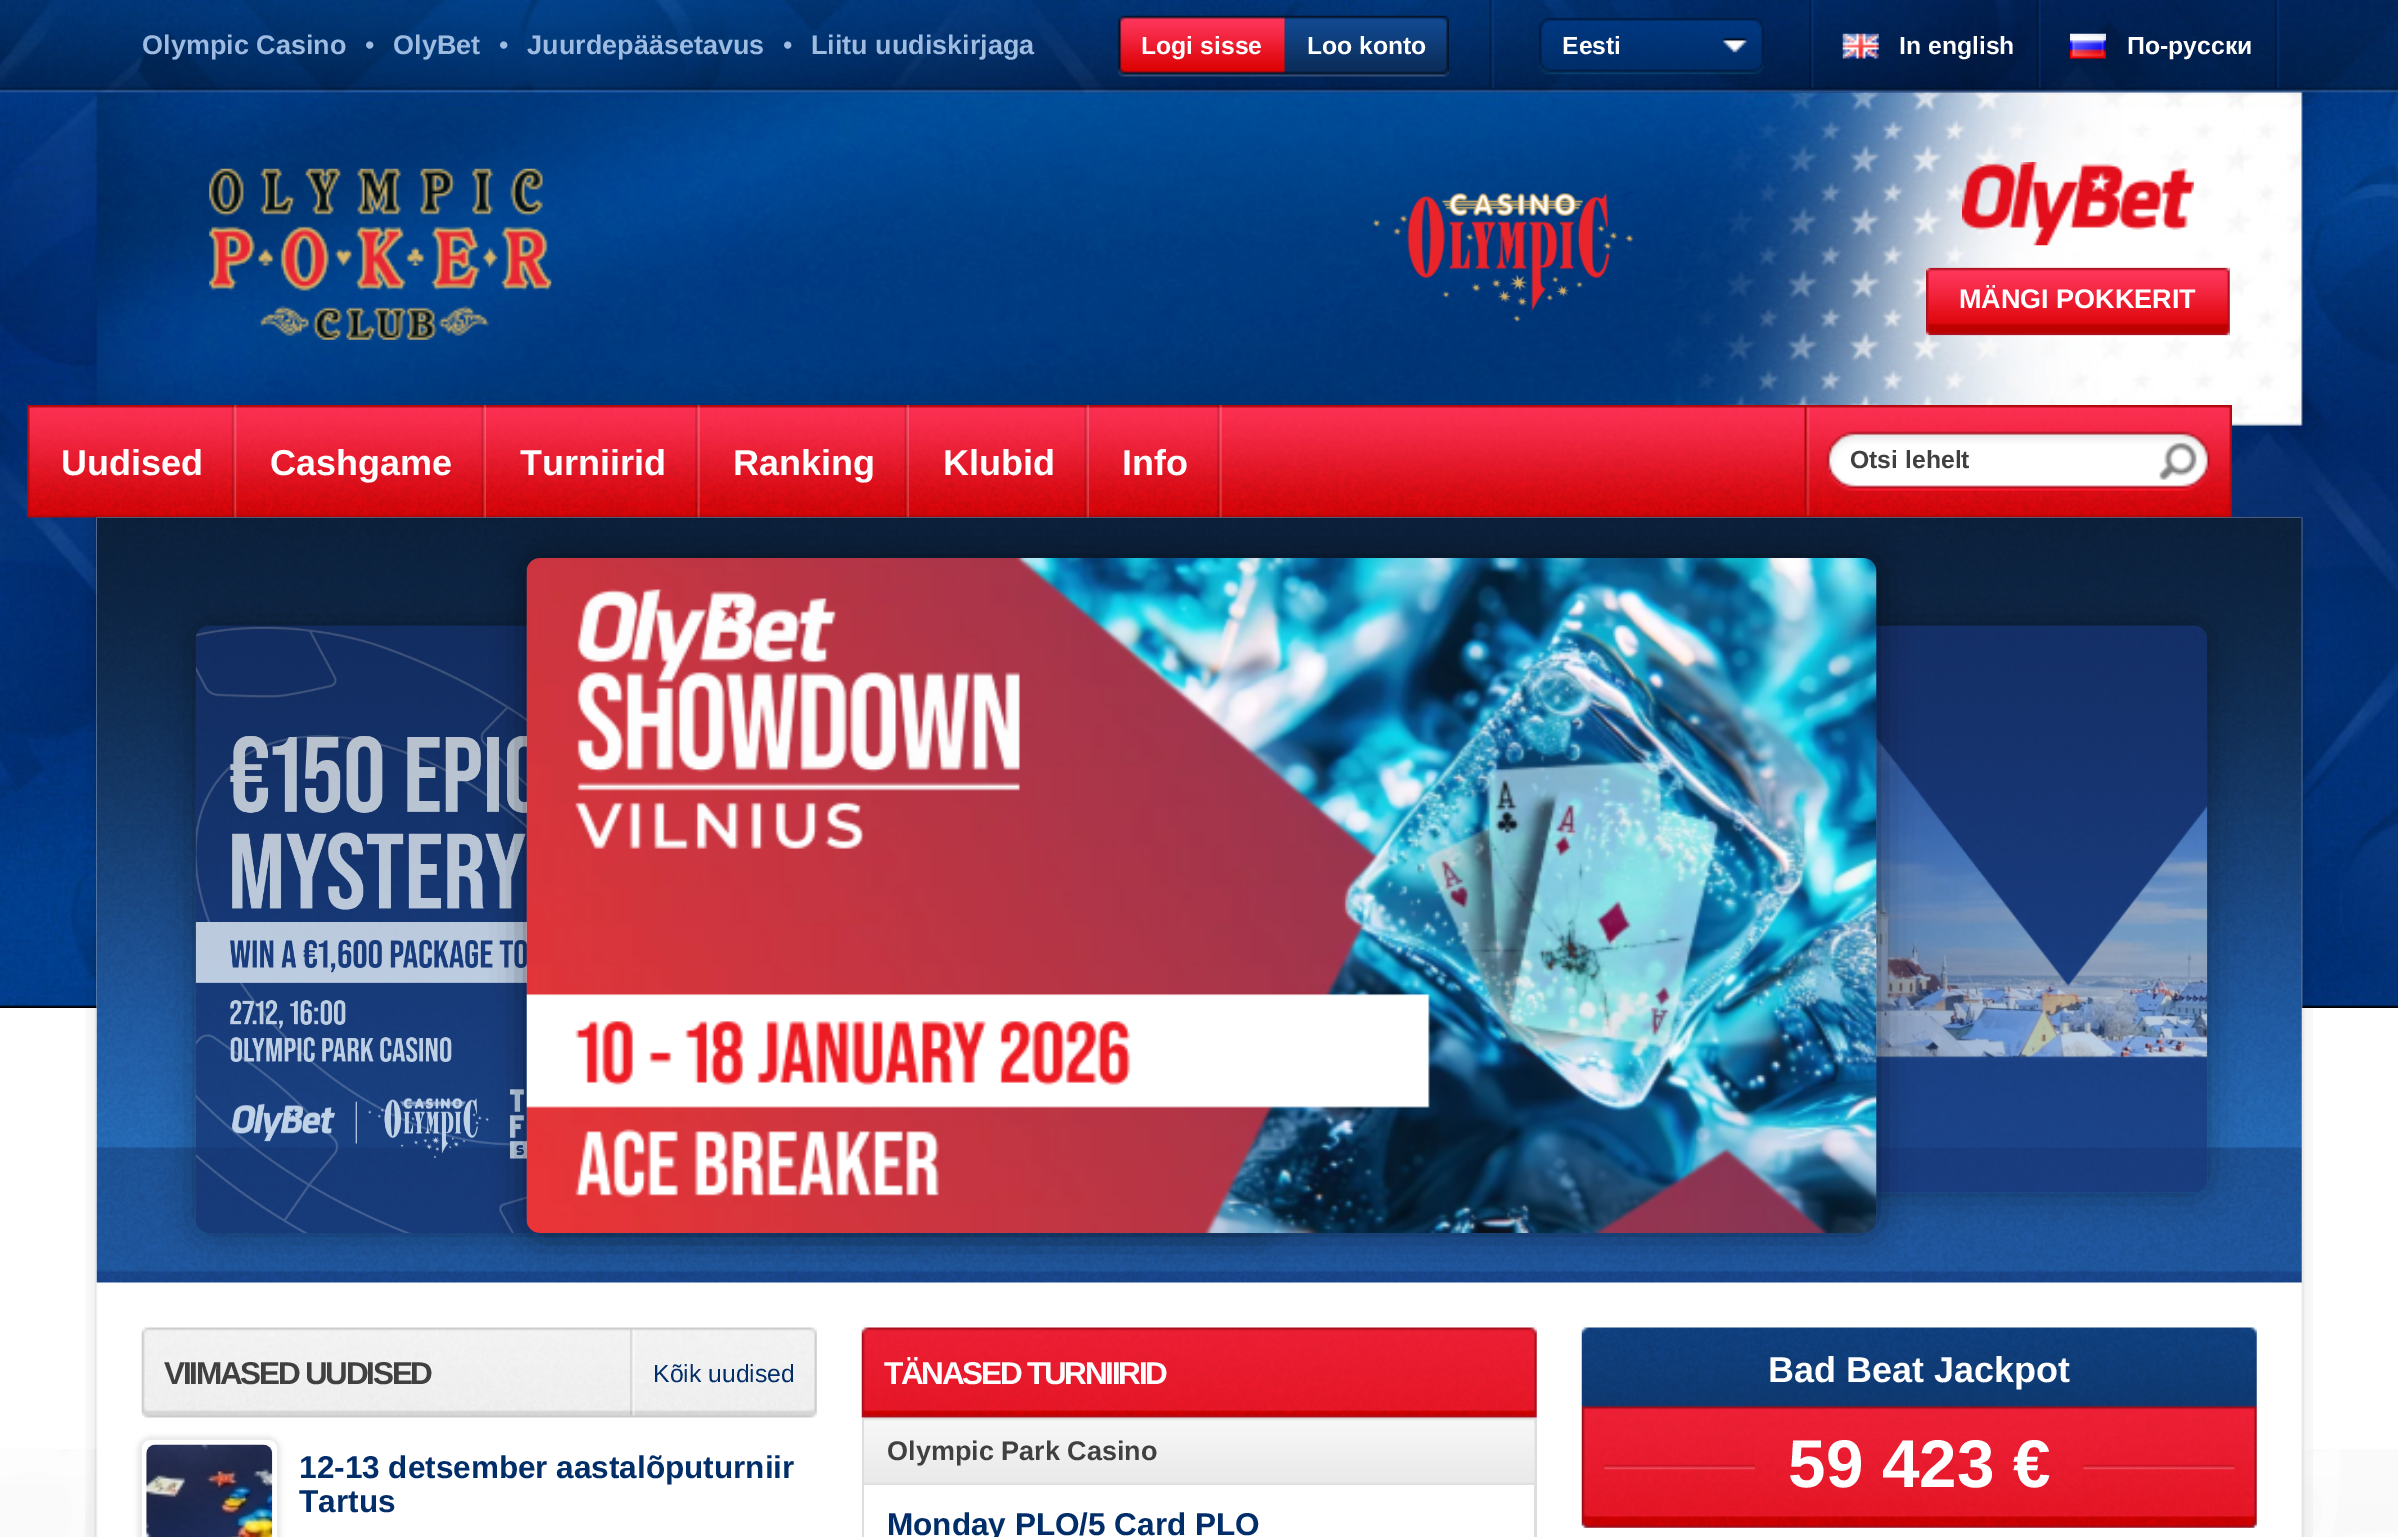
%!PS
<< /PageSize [2398 1537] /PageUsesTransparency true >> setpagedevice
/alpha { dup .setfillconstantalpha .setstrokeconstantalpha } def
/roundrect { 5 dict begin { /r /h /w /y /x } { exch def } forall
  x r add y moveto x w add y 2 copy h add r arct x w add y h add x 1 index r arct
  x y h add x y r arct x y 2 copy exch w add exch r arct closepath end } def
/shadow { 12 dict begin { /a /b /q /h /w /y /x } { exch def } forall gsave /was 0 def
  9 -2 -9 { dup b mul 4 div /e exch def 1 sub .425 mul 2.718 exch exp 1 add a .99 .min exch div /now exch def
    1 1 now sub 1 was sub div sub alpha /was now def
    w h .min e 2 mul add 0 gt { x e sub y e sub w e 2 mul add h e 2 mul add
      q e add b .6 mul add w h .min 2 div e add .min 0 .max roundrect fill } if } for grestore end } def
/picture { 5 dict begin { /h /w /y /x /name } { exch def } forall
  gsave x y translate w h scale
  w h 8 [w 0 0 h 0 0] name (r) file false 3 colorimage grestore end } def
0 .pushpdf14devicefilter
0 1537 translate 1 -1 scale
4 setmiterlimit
1 setgray
0 0 2398 1537 rectfill
(img1.rgb) 0 1449 2398 88 picture
(img2.rgb) 0 0 2398 1008 picture
(img3.rgb) 0 0 2398 93 picture
/LiberationSans-Bold [27 0 0 -27 0 0] selectfont
0.62 0.737 0.886 setrgbcolor
142 54 moveto (Olympic Casino) show
/LiberationSans-Regular [27 0 0 -27 0 0] selectfont
365 54 moveto (•) show
/LiberationSans-Bold [27 0 0 -27 0 0] selectfont
393 54 moveto (OlyBet) show
/LiberationSans-Regular [27 0 0 -27 0 0] selectfont
499 54 moveto (•) show
/LiberationSans-Bold [27 0 0 -27 0 0] selectfont
527 54 moveto (Juurdepääsetavus) show
/LiberationSans-Regular [27 0 0 -27 0 0] selectfont
783 54 moveto (•) show
/LiberationSans-Bold [27 0 0 -27 0 0] selectfont
811 54 moveto (Liitu uudiskirjaga) show
(img4.rgb) 1489 0 5 88 picture
(img5.rgb) 1118 15 167 62 picture
/LiberationSans-Bold [24.75 0 0 -24.75 0 0] selectfont
1 setgray
1141 54 moveto (Logi sisse) show
(img6.rgb) 1284 15 165 62 picture
1307 54 moveto (Loo konto) show
(img7.rgb) 1539 18 225 57 picture
1562 54 moveto (Eesti) show
(img8.rgb) 2274 0 6 88 picture
(img9.rgb) 1809 0 5 88 picture
(img10.rgb) 1842 33 37 26 picture
1899 54 moveto (In english) show
(img11.rgb) 2036 0 5 88 picture
(img12.rgb) 2070 33 36 26 picture
2127 54 moveto (По-русски) show
(img13.rgb) 209 168 343 172 picture
(img14.rgb) 1372 193 262 129 picture
(img15.rgb) 1962 162 232 84 picture
(img16.rgb) 1926 267 304 69 picture
(img17.rgb) 1960 267 270 69 picture
/LiberationSans-Bold [27 0 0 -27 0 0] selectfont
1959 308 moveto (MÄNGI POKKERIT) show
(img18.rgb) 27 405 2205 113 picture
(img19.rgb) 231 405 6 113 picture
/LiberationSans-Bold [36 0 0 -36 0 0] selectfont
61 475 moveto (Uudised) show
(img20.rgb) 481 405 5 113 picture
270 475 moveto (Cashgame) show
(img21.rgb) 695 405 5 113 picture
520 475 moveto (Turniirid) show
(img22.rgb) 904 405 5 113 picture
733 475 moveto (Ranking) show
(img23.rgb) 1084 405 5 113 picture
943 475 moveto (Klubid) show
(img24.rgb) 1217 405 5 113 picture
1122 475 moveto (Info) show
(img25.rgb) 1804 406 428 112 picture
/LiberationSans-Bold [24.75 0 0 -24.75 0 0] selectfont
0.251 setgray
1850 468 moveto (Otsi lehelt) show
(img26.rgb) 85 517 2228 1020 picture
(img27.rgb) 96 517 2206 766 picture
gsave
newpath 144 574 moveto 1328 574 lineto 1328 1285 lineto 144 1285 lineto closepath 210 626 moveto 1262 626 lineto 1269.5 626 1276 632.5 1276 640 curveto 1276 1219 lineto 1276 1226.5 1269.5 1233 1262 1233 curveto 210 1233 lineto 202.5 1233 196 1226.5 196 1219 curveto 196 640 lineto 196 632.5 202.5 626 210 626 curveto closepath eoclip newpath
0 setgray
196 626 1080 607 14 17 0.35 shadow
grestore
(img29.rgb) 195 625 345 608 picture
gsave
newpath 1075 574 moveto 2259 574 lineto 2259 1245 lineto 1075 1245 lineto closepath 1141 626 moveto 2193 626 lineto 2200.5 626 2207 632.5 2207 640 curveto 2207 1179 lineto 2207 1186.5 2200.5 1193 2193 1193 curveto 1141 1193 lineto 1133.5 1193 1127 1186.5 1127 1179 curveto 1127 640 lineto 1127 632.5 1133.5 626 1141 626 curveto closepath eoclip newpath
0 setgray
1127 626 1080 567 14 17 0.35 shadow
grestore
(img30.rgb) 1876 625 332 568 picture
0 setgray
527 558 1350 675 14 17 0.5 shadow
(img28.rgb) 526 558 1351 675 picture
(img31.rgb) 141 1327 676 91 picture
/LiberationSans-Bold [31.5 0 0 -31.5 0 0] selectfont
0.251 setgray
164 1384 moveto -2.25 0 (VIIMASED UUDISED) ashow
(img32.rgb) 630 1329 5 87 picture
/LiberationSans-Regular [24.75 0 0 -24.75 0 0] selectfont
0.004 0.18 0.408 setrgbcolor
653 1382 moveto (Kõik uudised) show
0 setgray
137 1436 144 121 14 2 0.07 shadow
1 setgray
142 1440 135 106 9 roundrect fill
(img33.rgb) 146 1444 127 93 picture
/LiberationSans-Bold [31.5 0 0 -31.5 0 0] selectfont
0.004 0.18 0.408 setrgbcolor
299 1478 moveto (12-13 detsember aastalõputurniir) show
299 1512 moveto (Tartus) show
0.871 setgray
newpath 862 1418 moveto 1537 1418 lineto 1537 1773 lineto 1537 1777 1534 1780 1530 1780 curveto 868 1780 lineto 865 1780 862 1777 862 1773 curveto closepath 864 1418 moveto 1534 1418 lineto 1534 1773 lineto 1534 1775 1532 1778 1530 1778 curveto 868 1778 lineto 866 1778 864 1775 864 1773 curveto closepath eofill
(img35.rgb) 864 1417 671 68 picture
(img34.rgb) 861 1327 676 91 picture
1 setgray
884 1384 moveto -2.25 0 (TÄNASED TURNIIRID) ashow
/LiberationSans-Bold [27 0 0 -27 0 0] selectfont
0.251 setgray
887 1460 moveto (Olympic Park Casino) show
/LiberationSans-Bold [31.5 0 0 -31.5 0 0] selectfont
0.004 0.18 0.408 setrgbcolor
887 1535 moveto (Monday PLO/5 Card PLO) show
(img36.rgb) 1581 1327 676 201 picture
/LiberationSans-Bold [36 0 0 -36 0 0] selectfont
1 setgray
1768 1382 moveto (Bad Beat Jackpot) show
(img37.rgb) 1604 1464 631 6 picture
(img38.rgb) 1755 1431 329 68 picture
/LiberationSans-Bold [67.5 0 0 -67.5 0 0] selectfont
1788 1487 moveto (59 423 €) show
.poppdf14devicefilter showpage
